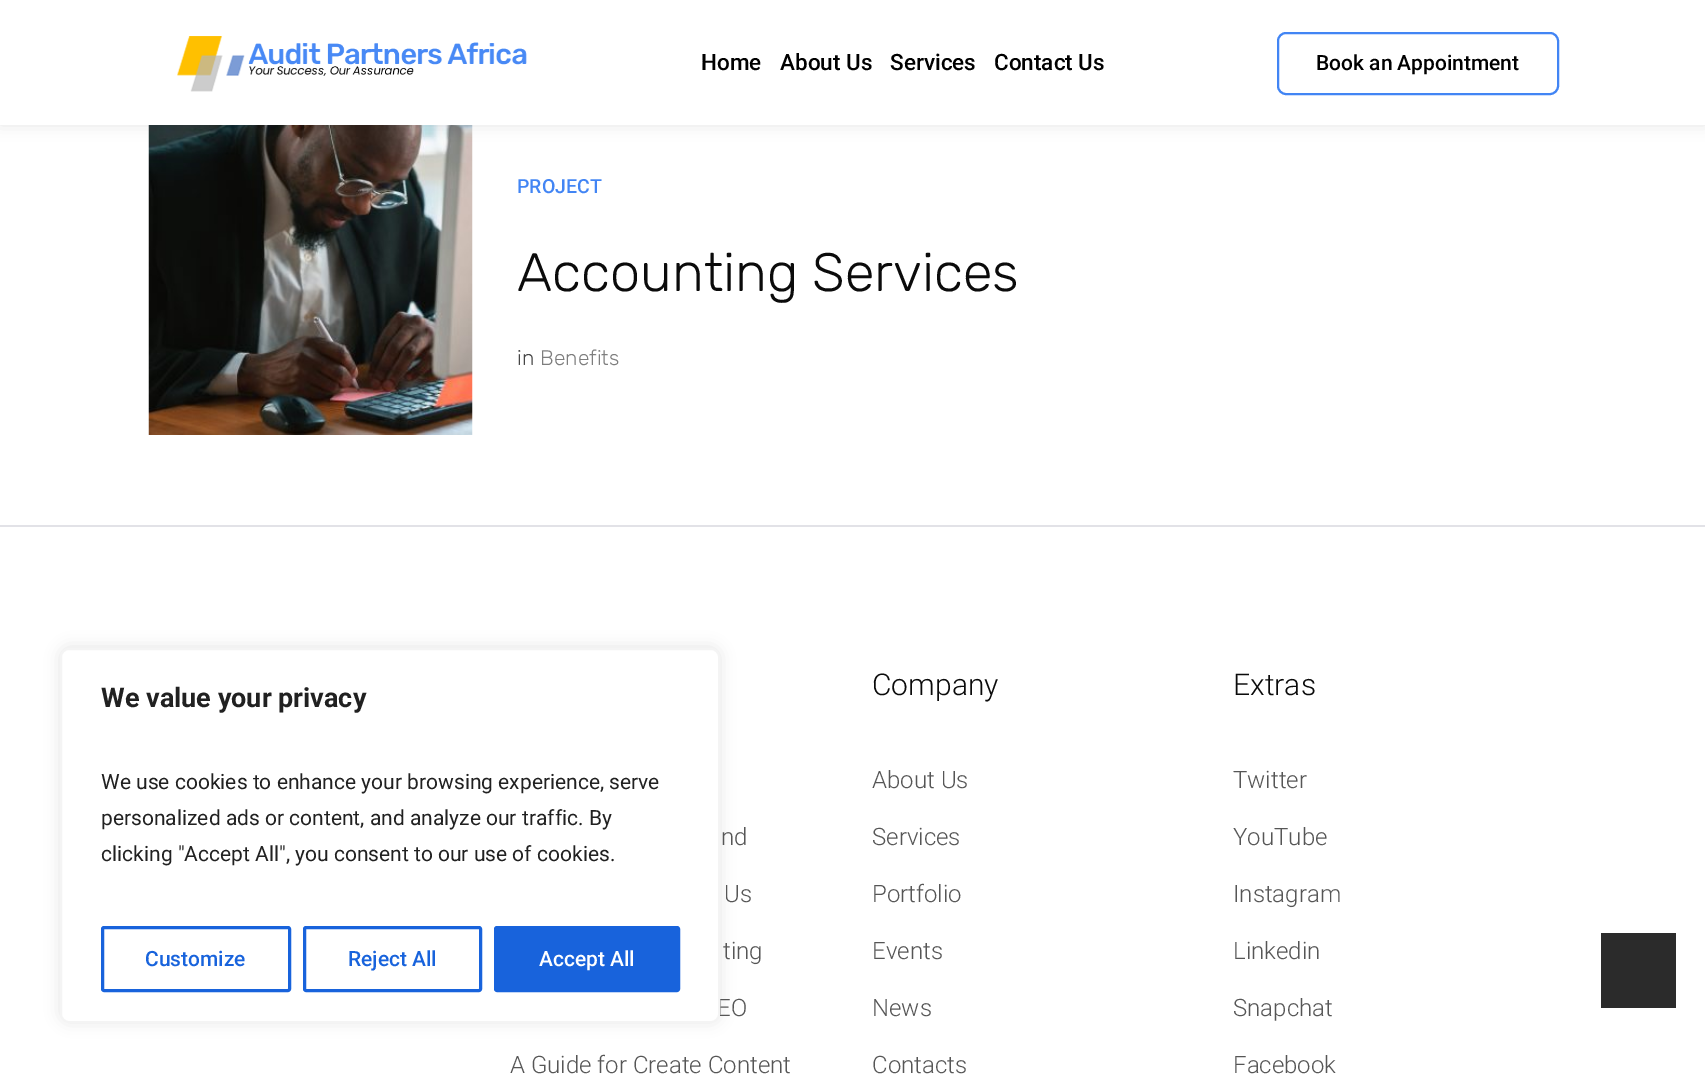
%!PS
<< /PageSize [1705 1082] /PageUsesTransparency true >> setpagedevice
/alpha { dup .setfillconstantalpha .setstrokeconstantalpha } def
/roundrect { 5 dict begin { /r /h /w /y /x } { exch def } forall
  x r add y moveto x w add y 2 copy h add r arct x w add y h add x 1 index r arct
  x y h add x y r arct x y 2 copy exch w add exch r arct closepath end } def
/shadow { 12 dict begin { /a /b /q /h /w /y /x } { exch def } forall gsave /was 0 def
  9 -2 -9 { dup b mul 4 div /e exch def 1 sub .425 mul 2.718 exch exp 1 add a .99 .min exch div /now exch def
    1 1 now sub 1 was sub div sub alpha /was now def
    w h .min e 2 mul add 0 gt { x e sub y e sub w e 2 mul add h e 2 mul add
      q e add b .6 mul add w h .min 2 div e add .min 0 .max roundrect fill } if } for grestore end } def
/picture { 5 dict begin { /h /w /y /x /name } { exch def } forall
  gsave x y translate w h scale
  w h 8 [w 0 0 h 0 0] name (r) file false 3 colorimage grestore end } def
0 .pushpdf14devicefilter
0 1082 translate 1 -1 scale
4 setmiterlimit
1 setgray
0 0 1705 1082 rectfill
0.675 0.671 0.671 setrgbcolor
60 647 660 375 9 7.5 0.3 shadow
/Roboto-Light [24 0 0 -24 0 0] selectfont
0.337 setgray
717 1016 moveto (EO) show
1 setgray
61 649 658 373 8 roundrect gsave fill grestore
0.957 setgray
2 setlinewidth
stroke
/Roboto-Bold [27 0 0 -27 0 0] selectfont
0.129 setgray
101 707 moveto (We value your privacy) show
/Roboto-Regular [21 0 0 -21 0 0] selectfont
101 789 moveto (We use cookies to enhance your browsing experience, serve) show
101 825 moveto (personalized ads or content, and analyze our traffic. By) show
101 861 moveto (clicking "Accept All", you consent to our use of cookies.) show
0.094 0.388 0.863 setrgbcolor
3 setlinewidth
102.5 927.5 187 63 1.5 roundrect stroke
/Roboto-Medium [21 0 0 -21 0 0] selectfont
145 966 moveto (Customize) show
304.5 927.5 176 63 1.5 roundrect stroke
348 966 moveto (Reject All) show
495.5 927.5 183 63 1.5 roundrect gsave fill grestore
stroke
1 setgray
539 966 moveto (Accept All) show
(img2.rgb) 148 125 325 310 picture
0 setgray
0 0 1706 125 0 7.5 0.1 shadow
1 setgray
0 0 1705 125 rectfill
(img1.rgb) 177 36 350 56 picture
/Roboto-Medium [22.5 0 0 -22.5 0 0] selectfont
0 setgray
701 70 moveto (Home) show
780 70 moveto (About Us) show
890 70 moveto (Services) show
994 70 moveto (Contact Us) show
0.259 0.522 0.957 setrgbcolor
2 setlinewidth
1278 33 280 61 8 roundrect stroke
/Roboto-Medium [21 0 0 -21 0 0] selectfont
0 setgray
1316 70 moveto (Book an Appointment) show
/Roboto-Medium [19.5 0 0 -19.5 0 0] selectfont
0.259 0.522 0.957 setrgbcolor
517 193 moveto (PROJECT) show
/Rubik-Light [54 0 0 -54 0 0] selectfont
0.043 setgray
517 291 moveto (Accounting Services) show
/Rubik-Light [21 0 0 -21 0 0] selectfont
0.275 setgray
517 365 moveto (in) show
0.494 setgray
540 365 moveto (Benefits) show
0.886 0.886 0.906 setrgbcolor
0 525 1705 2 rectfill
/Roboto-Light [24 0 0 -24 0 0] selectfont
0.337 setgray
721 845 moveto (nd) show
724 902 moveto (Us) show
723 959 moveto (ting) show
510 1073 moveto (A Guide for Create Content) show
/Roboto-Light [30 0 0 -30 0 0] selectfont
0.043 setgray
872 695 moveto (Company) show
/Roboto-Light [24 0 0 -24 0 0] selectfont
0.337 setgray
872 788 moveto (About Us) show
872 845 moveto (Services) show
872 902 moveto (Portfolio) show
872 959 moveto (Events) show
872 1016 moveto (News) show
872 1073 moveto (Contacts) show
/Roboto-Light [30 0 0 -30 0 0] selectfont
0.043 setgray
1233 695 moveto (Extras) show
/Roboto-Light [24 0 0 -24 0 0] selectfont
0.337 setgray
1233 788 moveto (Twitter) show
1233 845 moveto (YouTube) show
1233 902 moveto (Instagram) show
1233 959 moveto (Linkedin) show
1233 1016 moveto (Snapchat) show
1233 1073 moveto (Facebook) show
0.169 setgray
1601 933 75 75 rectfill
.poppdf14devicefilter showpage
